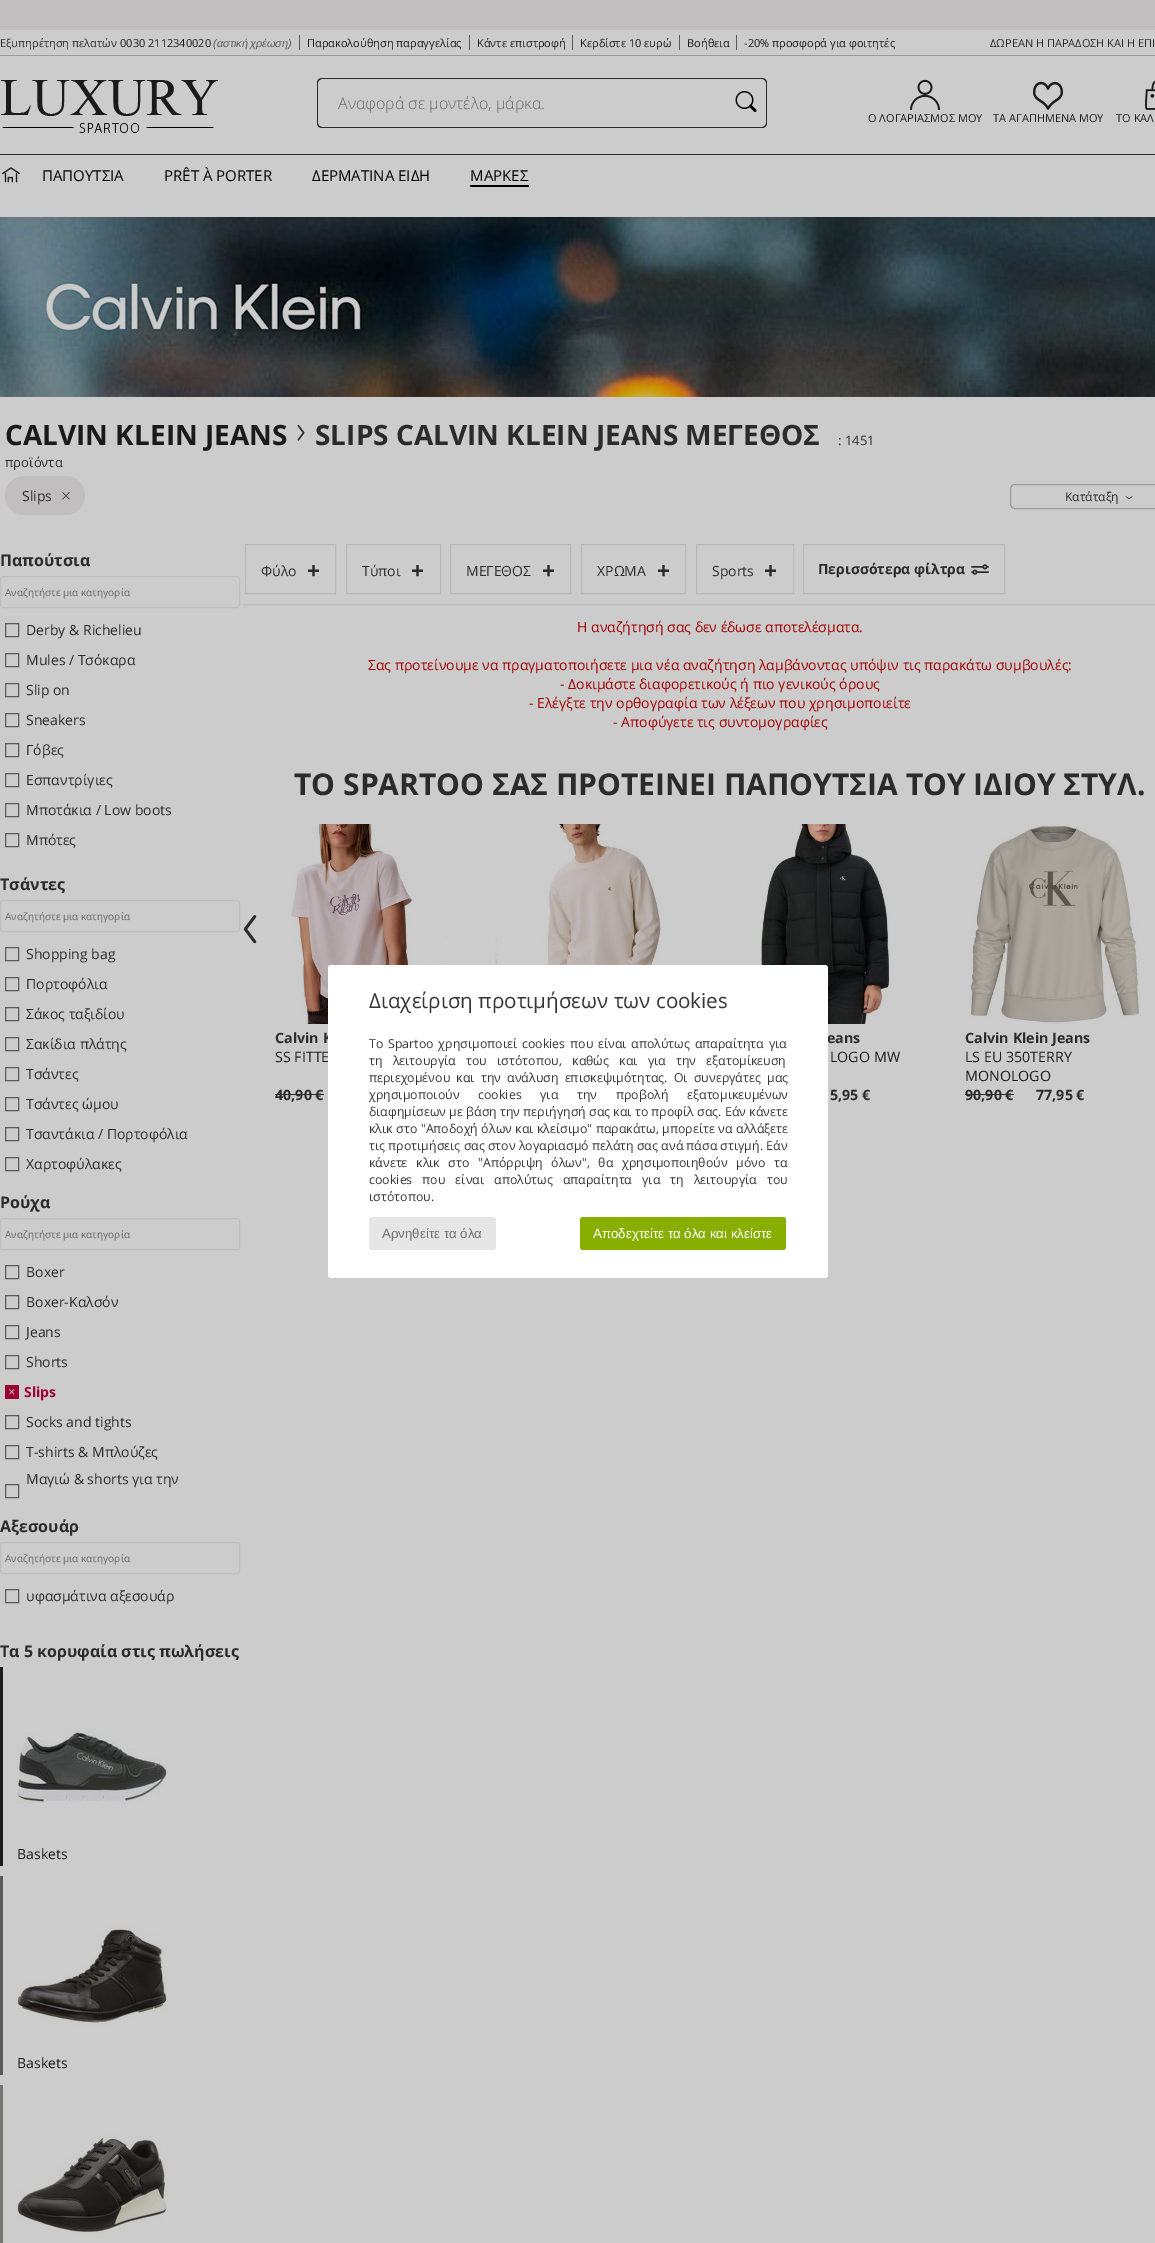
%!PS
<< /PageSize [1155 2243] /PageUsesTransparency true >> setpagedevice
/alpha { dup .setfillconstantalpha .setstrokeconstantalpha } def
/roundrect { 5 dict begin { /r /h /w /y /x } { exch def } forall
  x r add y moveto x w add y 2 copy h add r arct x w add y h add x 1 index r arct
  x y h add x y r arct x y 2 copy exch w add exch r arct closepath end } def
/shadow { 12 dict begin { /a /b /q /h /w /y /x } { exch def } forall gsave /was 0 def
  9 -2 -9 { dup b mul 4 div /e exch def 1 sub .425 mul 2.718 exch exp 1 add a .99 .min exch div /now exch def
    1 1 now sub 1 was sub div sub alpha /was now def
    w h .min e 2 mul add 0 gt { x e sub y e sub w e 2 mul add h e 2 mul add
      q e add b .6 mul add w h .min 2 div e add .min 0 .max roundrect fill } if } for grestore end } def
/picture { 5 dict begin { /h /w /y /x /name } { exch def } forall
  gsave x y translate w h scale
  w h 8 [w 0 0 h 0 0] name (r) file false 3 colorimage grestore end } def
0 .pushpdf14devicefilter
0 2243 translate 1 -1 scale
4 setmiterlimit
0.8 setgray
0 0 1155 2243 rectfill
0.753 0.745 0.745 setrgbcolor
0 0 1155 30 rectfill
0.604 setgray
0 55 1155 1 rectfill
0.353 setgray
299 35 1 15 rectfill
/OpenSans-Regular [11 0 0 -11 0 0] selectfont
0.169 setgray
0 47 moveto (Εξυπηρέτηση πελατών) show
0.102 setgray
120 47 moveto (0030 2112340020) show
/LiberationSans-Italic [11 0 0 -11 0 0] selectfont
0.353 setgray
213 47 moveto -1 0 32 (\(αστική χρέωση\)) widthshow
469 35 1 15 rectfill
/OpenSans-Regular [11 0 0 -11 0 0] selectfont
0.102 setgray
307 47 moveto (Παρακολούθηση παραγγελίας) show
0.353 setgray
572 35 1 15 rectfill
0.102 setgray
477 47 moveto (Κάντε επιστροφή) show
0.353 setgray
679 35 1 15 rectfill
0.102 setgray
580 47 moveto (Κερδίστε 10 ευρώ) show
0.353 setgray
736 35 1 15 rectfill
0.102 setgray
687 47 moveto (Βοήθεια) show
744 47 moveto (-20% προσφορά για φοιτητές) show
0.169 setgray
990 47 moveto (ΔΩΡΕΑΝ Η ΠΑΡΑΔΟΣΗ ΚΑΙ Η ΕΠΙ) show
(img1.rgb) 1 80 217 53 picture
newpath 322 78 moveto 727 78 lineto 727 128 lineto 322 128 lineto 319 128 317 126 317 123 curveto 317 83 lineto 317 80 319 78 322 78 curveto closepath 322 79 moveto 727 79 lineto 727 127 lineto 322 127 lineto 320 127 318 125 318 123 curveto 318 83 lineto 318 81 320 79 322 79 curveto closepath eofill
/OpenSans-Light [16 0 0 -16 0 0] selectfont
0.4 setgray
338 109 moveto (Αναφορά σε μοντέλο, μάρκα.) show
0.169 setgray
newpath 727 78 moveto 762 78 lineto 765 78 767 80 767 83 curveto 767 123 lineto 767 126 765 128 762 128 curveto 727 128 lineto closepath 727 79 moveto 762 79 lineto 764 79 766 81 766 83 curveto 766 123 lineto 766 125 764 127 762 127 curveto 727 127 lineto closepath eofill
(img2.rgb) 735 91 22 21 picture
(img3.rgb) 910 79 30 31 picture
/OpenSans-Regular [11 0 0 -11 0 0] selectfont
0.102 setgray
868 122 moveto (Ο ΛΟΓΑΡΙΑΣΜΟΣ ΜΟΥ) show
(img4.rgb) 1033 81 30 29 picture
993 122 moveto (ΤΑ ΑΓΑΠΗΜΕΝΑ ΜΟΥ) show
(img5.rgb) 1145 80 10 30 picture
1116 122 moveto (ΤΟ ΚΑΛ) show
0.169 setgray
0 154 1155 1 rectfill
(img6.rgb) 2 167 18 16 picture
/OpenSans-Regular [15 0 0 -15 0 0] selectfont
0 setgray
42 181 moveto (ΠΑΠΟΥΤΣΙΑ) show
164 181 moveto (PRÊT À PORTER) show
312 181 moveto (ΔΕΡΜΑΤΙΝΑ ΕΙΔΗ) show
470 185 59 2 rectfill
470 181 moveto (ΜΑΡΚΕΣ) show
(img7.rgb) 0 217 1155 180 picture
/OpenSans-Bold [28 0 0 -28 0 0] selectfont
0.102 setgray
5 445 moveto (CALVIN KLEIN JEANS) show
(img8.rgb) 297 424 8 17 picture
0.169 setgray
315 445 moveto (SLIPS CALVIN KLEIN JEANS ΜΕΓΕΘΟΣ) show
/OpenSans-Regular [13 0 0 -13 0 0] selectfont
838 445 moveto (: 1451) show
5 467 moveto (προϊόντα) show
0.753 0.745 0.745 setrgbcolor
5 476 80 39 19.5 roundrect fill
/OpenSans-Regular [14 0 0 -14 0 0] selectfont
0.169 setgray
22 501 moveto (Slips) show
(img9.rgb) 62 492 8 8 picture
0.604 setgray
1010.5 484.5 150 24 4.5 roundrect stroke
/OpenSans-Regular [12 0 0 -12 0 0] selectfont
0.169 setgray
1065 501 moveto (Κατάταξη) show
(img10.rgb) 1125 496 8 4 picture
/OpenSans-Bold [16 0 0 -16 0 0] selectfont
0 566 moveto (Παπούτσια) show
gsave
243 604 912 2 rectclip
0 setgray
244 546 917 57 0 2 0.25 shadow
grestore
0.753 0.745 0.745 setrgbcolor
0.5 576.5 239 31 2.5 roundrect stroke
/OpenSans-Regular [10 0 0 -10 0 0] selectfont
0.4 setgray
5 596 moveto (Αναζητήστε μια κατηγορία) show
0.353 setgray
5.5 623.5 13 13 rectstroke
/OpenSans-Regular [14 0 0 -14 0 0] selectfont
0.169 setgray
26 635 moveto (Derby & Richelieu) show
0.353 setgray
5.5 653.5 13 13 rectstroke
0.169 setgray
26 665 moveto (Mules / Τσόκαρα) show
0.353 setgray
5.5 683.5 13 13 rectstroke
0.169 setgray
26 695 moveto (Slip on) show
0.353 setgray
5.5 713.5 13 13 rectstroke
0.169 setgray
26 725 moveto (Sneakers) show
0.353 setgray
5.5 743.5 13 13 rectstroke
0.169 setgray
26 755 moveto (Γόβες) show
0.353 setgray
5.5 773.5 13 13 rectstroke
0.169 setgray
26 785 moveto (Εσπαντρίγιες) show
0.353 setgray
5.5 803.5 13 13 rectstroke
0.169 setgray
26 815 moveto (Μποτάκια / Low boots) show
0.353 setgray
5.5 833.5 13 13 rectstroke
0.169 setgray
26 845 moveto (Μπότες) show
/OpenSans-Bold [16 0 0 -16 0 0] selectfont
0 890 moveto (Τσάντες) show
0.753 0.745 0.745 setrgbcolor
0.5 900.5 239 31 2.5 roundrect stroke
/OpenSans-Regular [10 0 0 -10 0 0] selectfont
0.4 setgray
5 920 moveto (Αναζητήστε μια κατηγορία) show
0.353 setgray
5.5 947.5 13 13 rectstroke
/OpenSans-Regular [14 0 0 -14 0 0] selectfont
0.169 setgray
26 959 moveto (Shopping bag) show
0.353 setgray
5.5 977.5 13 13 rectstroke
0.169 setgray
26 989 moveto (Πορτοφόλια) show
0.353 setgray
5.5 1007.5 13 13 rectstroke
0.169 setgray
26 1019 moveto (Σάκος ταξιδίου) show
0.353 setgray
5.5 1037.5 13 13 rectstroke
0.169 setgray
26 1049 moveto (Σακίδια πλάτης) show
0.353 setgray
5.5 1067.5 13 13 rectstroke
0.169 setgray
26 1079 moveto (Τσάντες) show
0.353 setgray
5.5 1097.5 13 13 rectstroke
0.169 setgray
26 1109 moveto (Τσάντες ώμου) show
0.353 setgray
5.5 1127.5 13 13 rectstroke
0.169 setgray
26 1139 moveto (Τσαντάκια / Πορτοφόλια) show
0.353 setgray
5.5 1157.5 13 13 rectstroke
0.169 setgray
26 1169 moveto (Χαρτοφύλακες) show
/OpenSans-Bold [16 0 0 -16 0 0] selectfont
0 1208 moveto (Ρούχα) show
0.753 0.745 0.745 setrgbcolor
0.5 1218.5 239 31 2.5 roundrect stroke
/OpenSans-Regular [10 0 0 -10 0 0] selectfont
0.4 setgray
5 1238 moveto (Αναζητήστε μια κατηγορία) show
0.353 setgray
5.5 1265.5 13 13 rectstroke
/OpenSans-Regular [14 0 0 -14 0 0] selectfont
0.169 setgray
26 1277 moveto (Boxer) show
0.353 setgray
5.5 1295.5 13 13 rectstroke
0.169 setgray
26 1307 moveto (Boxer-Καλσόν) show
0.353 setgray
5.5 1325.5 13 13 rectstroke
0.169 setgray
26 1337 moveto (Jeans) show
0.353 setgray
5.5 1355.5 13 13 rectstroke
0.169 setgray
26 1367 moveto (Shorts) show
0.612 0 0.2 setrgbcolor
5 1385 14 14 rectfill
/DejaVuSans-Regular [9 0 0 -9 0 0] selectfont
0.8 setgray
8 1395 moveto (✕) show
/OpenSans-Bold [14 0 0 -14 0 0] selectfont
0.612 0 0.2 setrgbcolor
24 1397 moveto (Slips) show
0.353 setgray
5.5 1415.5 13 13 rectstroke
/OpenSans-Regular [14 0 0 -14 0 0] selectfont
0.169 setgray
26 1427 moveto (Socks and tights) show
0.353 setgray
5.5 1445.5 13 13 rectstroke
0.169 setgray
26 1457 moveto (T-shirts & Μπλούζες) show
26 1484 moveto (Μαγιώ & shorts για την) show
0.353 setgray
5.5 1484.5 13 13 rectstroke
/OpenSans-Bold [16 0 0 -16 0 0] selectfont
0.169 setgray
0 1532 moveto (Αξεσουάρ) show
0.753 0.745 0.745 setrgbcolor
0.5 1542.5 239 31 2.5 roundrect stroke
/OpenSans-Regular [10 0 0 -10 0 0] selectfont
0.4 setgray
5 1562 moveto (Αναζητήστε μια κατηγορία) show
0.353 setgray
5.5 1589.5 13 13 rectstroke
/OpenSans-Regular [14 0 0 -14 0 0] selectfont
0.169 setgray
26 1601 moveto (υφασμάτινα αξεσουάρ) show
/OpenSans-Bold [16 0 0 -16 0 0] selectfont
0 1657 moveto (Τα 5 κορυφαία στις πωλήσεις) show
0.102 setgray
0 1667 3 199 rectfill
(img11.rgb) 17 1732 150 72 picture
/OpenSans-Regular [14 0 0 -14 0 0] selectfont
17 1859 moveto (Baskets) show
0.353 setgray
0 1876 3 199 rectfill
(img12.rgb) 17 1925 150 102 picture
0.102 setgray
17 2068 moveto (Baskets) show
0.467 0.455 0.455 setrgbcolor
0 2085 3 158 rectfill
(img13.rgb) 17 2134 150 104 picture
0.722 setgray
245.5 544.5 90 49 rectstroke
0.169 setgray
261 576 moveto (Φύλο) show
/LiberationSans-Bold [22 0 0 -22 0 0] selectfont
307 578 moveto (+) show
0.722 setgray
346.5 544.5 94 49 rectstroke
/OpenSans-Regular [14 0 0 -14 0 0] selectfont
0.169 setgray
362 576 moveto (Τύποι) show
/LiberationSans-Bold [22 0 0 -22 0 0] selectfont
411 578 moveto (+) show
0.722 setgray
450.5 544.5 120 49 rectstroke
/OpenSans-Regular [14 0 0 -14 0 0] selectfont
0.169 setgray
466 576 moveto (ΜΕΓΕΘΟΣ) show
/LiberationSans-Bold [22 0 0 -22 0 0] selectfont
542 578 moveto (+) show
0.722 setgray
581.5 544.5 104 49 rectstroke
/OpenSans-Regular [14 0 0 -14 0 0] selectfont
0.169 setgray
597 576 moveto (ΧΡΩΜΑ) show
/LiberationSans-Bold [22 0 0 -22 0 0] selectfont
657 578 moveto (+) show
0.722 setgray
696.5 544.5 97 49 rectstroke
/OpenSans-Regular [14 0 0 -14 0 0] selectfont
0.169 setgray
712 576 moveto (Sports) show
/LiberationSans-Bold [22 0 0 -22 0 0] selectfont
764 578 moveto (+) show
0.722 setgray
803.5 544.5 201 49 rectstroke
/OpenSans-Bold [14 0 0 -14 0 0] selectfont
0.169 setgray
818 574 moveto (Περισσότερα φίλτρα) show
(img14.rgb) 971 564 18 11 picture
/OpenSans-Regular [14 0 0 -14 0 0] selectfont
0.639 0 0 setrgbcolor
577 632 moveto (Η αναζήτησή σας δεν έδωσε αποτελέσματα.) show
368 670 moveto (Σας προτείνουμε να πραγματοποιήσετε μια νέα αναζήτηση λαμβάνοντας υπόψιν τις παρακάτω συμβουλές:) show
560 689 moveto (- Δοκιμάστε διαφορετικούς ή πιο γενικούς όρους) show
529 708 moveto (- Ελέγξτε την ορθογραφία των λέξεων που χρησιμοποιείτε) show
613 727 moveto (- Αποφύγετε τις συντομογραφίες) show
/OpenSans-Bold [30 0 0 -30 0 0] selectfont
0.169 setgray
294 795 moveto (ΤΟ SPARTOO ΣΑΣ ΠΡΟΤΕΙΝΕΙ ΠΑΠΟΥΤΣΙΑ ΤΟΥ ΙΔΙΟΥ ΣΤΥΛ.) show
(img15.rgb) 243 915 14 29 picture
(img16.rgb) 495 824 167 141 picture
(img17.rgb) 291 824 157 200 picture
/OpenSans-Bold [14.25 0 0 -14.25 0 0] selectfont
275 1043 moveto (Calvin K) show
/OpenSans-Regular [14.25 0 0 -14.25 0 0] selectfont
0.102 setgray
275 1062 moveto (SS FITTE) show
/OpenSans-Bold [14.25 0 0 -14.25 0 0] selectfont
0.169 setgray
275 1100 moveto (40,90 €) show
275 1094 49 1 rectfill
(img18.rgb) 761 824 129 200 picture
827 1043 moveto (eans) show
/OpenSans-Regular [14.25 0 0 -14.25 0 0] selectfont
0.102 setgray
830 1062 moveto (LOGO MW) show
/OpenSans-Bold [14.25 0 0 -14.25 0 0] selectfont
0.169 setgray
830 1100 moveto (5,95 €) show
(img19.rgb) 969 825 172 198 picture
965 1043 moveto (Calvin Klein Jeans) show
/OpenSans-Regular [14.25 0 0 -14.25 0 0] selectfont
0.102 setgray
965 1062 moveto (LS EU 350TERRY) show
965 1081 moveto (MONOLOGO) show
/OpenSans-Bold [14.25 0 0 -14.25 0 0] selectfont
0.169 setgray
965 1100 moveto (90,90 €) show
965 1094 49 1 rectfill
1036 1100 moveto (77,95 €) show
1 setgray
328 965 500 313 3 roundrect fill
/OpenSans-Regular [20.6 0 0 -20.6 0 0] selectfont
0.212 setgray
369 1008 moveto (Διαχείριση προτιμήσεων των cookies) show
/OpenSans-Regular [12.4 0 0 -12.4 0 0] selectfont
369 1048 moveto 1.5 0 32 (Το Spartoo χρησιμοποιεί cookies που είναι απολύτως απαραίτητα για) widthshow
369 1065 moveto 7 0 32 (τη λειτουργία του ιστότοπου, καθώς και για την εξατομίκευση) widthshow
369 1082 moveto 3 0 32 (περιεχομένου και την ανάλυση επισκεψιμότητας. Οι συνεργάτες μας) widthshow
369 1099 moveto 15.5 0 32 (χρησιμοποιούν cookies για την προβολή εξατομικευμένων) widthshow
369 1116 moveto (διαφημίσεων με βάση την περιήγησή σας και το προφίλ σας. Εάν κάνετε) show
369 1133 moveto 0.25 0 32 (κλικ στο "Αποδοχή όλων και κλείσιμο" παρακάτω, μπορείτε να αλλάξετε) widthshow
369 1150 moveto (τις προτιμήσεις σας στον λογαριασμό πελάτη σας ανά πάσα στιγμή. Εάν) show
369 1167 moveto 5.5 0 32 (κάνετε κλικ στο "Απόρριψη όλων", θα χρησιμοποιηθούν μόνο τα) widthshow
369 1184 moveto 6.75 0 32 (cookies που είναι απολύτως απαραίτητα για τη λειτουργία του) widthshow
369 1201 moveto (ιστότοπου.) show
0.902 setgray
369 1217 127 33 3 roundrect fill
/LiberationSans-Regular [13.3 0 0 -13.3 0 0] selectfont
0.439 setgray
382 1238 moveto (Αρνηθείτε τα όλα) show
0.533 0.686 0 setrgbcolor
580 1217 206 33 3 roundrect fill
1 setgray
593 1238 moveto (Αποδεχτείτε τα όλα και κλείστε) show
.poppdf14devicefilter showpage
